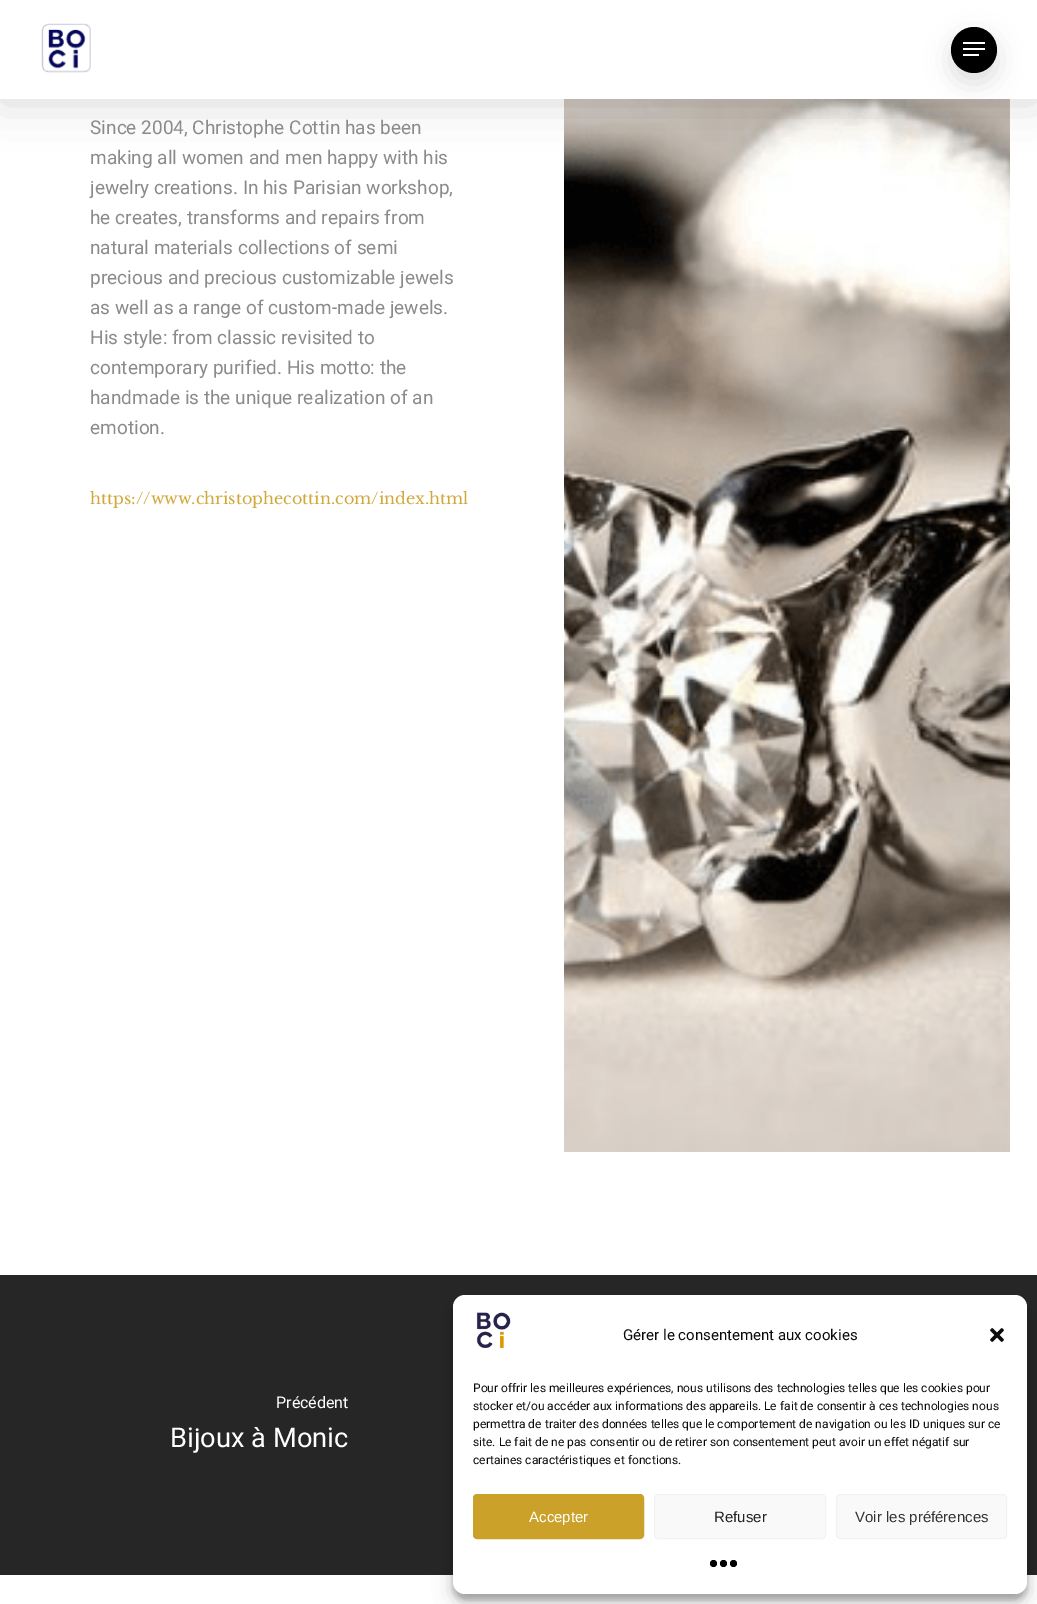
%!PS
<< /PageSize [1037 1604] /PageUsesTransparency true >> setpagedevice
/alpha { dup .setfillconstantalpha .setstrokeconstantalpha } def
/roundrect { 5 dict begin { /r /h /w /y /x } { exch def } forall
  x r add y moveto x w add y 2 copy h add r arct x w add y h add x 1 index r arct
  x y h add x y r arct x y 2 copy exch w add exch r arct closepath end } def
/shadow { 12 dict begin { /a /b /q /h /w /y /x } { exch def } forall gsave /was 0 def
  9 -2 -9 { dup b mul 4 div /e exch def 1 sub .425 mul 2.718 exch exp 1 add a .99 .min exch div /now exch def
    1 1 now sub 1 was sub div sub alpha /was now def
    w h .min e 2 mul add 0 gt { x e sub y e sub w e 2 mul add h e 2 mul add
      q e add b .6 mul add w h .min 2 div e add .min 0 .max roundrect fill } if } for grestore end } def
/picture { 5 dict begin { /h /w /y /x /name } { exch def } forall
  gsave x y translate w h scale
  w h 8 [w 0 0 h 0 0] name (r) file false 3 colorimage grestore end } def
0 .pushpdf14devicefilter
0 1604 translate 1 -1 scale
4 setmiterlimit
1 setgray
0 0 1037 1604 rectfill
(img2.rgb) 564 99 446 1053 picture
0 setgray
0 3 1037 99 0 22.5 0.15 shadow
1 setgray
0 0 1037 99 rectfill
(img1.rgb) 41 23 50 50 picture
0 setgray
951 37 46 46 23 12.5 0.13 shadow
newpath 974 50 23 0 360 arc closepath fill
1 setgray
963 42 22 2 rectfill
963 54 16 2 rectfill
963 48 22 2 rectfill
/Heebo-Regular [19 0 0 -19 0 0] selectfont
0.545 setgray
90 134 moveto (Since 2004, Christophe Cottin has been) show
90 164 moveto (making all women and men happy with his) show
90 194 moveto (jewelry creations. In his Parisian workshop,) show
90 224 moveto (he creates, transforms and repairs from) show
90 254 moveto (natural materials collections of semi) show
90 284 moveto (precious and precious customizable jewels) show
90 314 moveto (as well as a range of custom-made jewels.) show
90 344 moveto (His style: from classic revisited to) show
90 374 moveto (contemporary purified. His motto: the) show
90 404 moveto (handmade is the unique realization of an) show
90 434 moveto (emotion.) show
/LibreBaskerville-Regular [16 0 0 -16 0 0] selectfont
0.816 0.663 0.235 setrgbcolor
90 504 moveto (https://www.christophecottin.com/index.html) show
0.149 setgray
0 1275 1037 300 rectfill
/Heebo-Regular [16 0 0 -16 0 0] selectfont
1 setgray
276 1408 moveto (Précédent) show
/Heebo-Regular [27.25 0 0 -27.25 0 0] selectfont
170 1447 moveto (Bijoux à Monic) show
0 setgray
453 1301 574 299 12 3 0.23 shadow
453 1305 574 299 12 10 0.19 shadow
1 setgray
453 1295 574 299 12 roundrect fill
(img3.rgb) 476 1312 35 37 picture
/Heebo-Regular [15 0 0 -15 0 0] selectfont
0.039 setgray
623 1340 moveto (Gérer le consentement aux cookies) show
(img4.rgb) 990 1328 14 14 picture
/Heebo-Regular [12 0 0 -12 0 0] selectfont
473 1392 moveto (Pour offrir les meilleures expériences, nous utilisons des technologies telles que les cookies pour) show
473 1410 moveto (stocker et/ou accéder aux informations des appareils. Le fait de consentir à ces technologies nous) show
473 1428 moveto (permettra de traiter des données telles que le comportement de navigation ou les ID uniques sur ce) show
473 1446 moveto (site. Le fait de ne pas consentir ou de retirer son consentement peut avoir un effet négatif sur) show
473 1464 moveto (certaines caractéristiques et fonctions.) show
0.8 0.631 0.165 setrgbcolor
473.5 1494.5 170 44 3.5 roundrect gsave fill grestore
stroke
/LiberationSans-Regular [15 0 0 -15 0 0] selectfont
1 setgray
529 1522 moveto (Accepter) show
0.976 setgray
654.5 1494.5 171 44 3.5 roundrect gsave fill grestore
0.949 setgray
stroke
0.133 setgray
714 1522 moveto (Refuser) show
0.976 setgray
836.5 1494.5 170 44 3.5 roundrect gsave fill grestore
0.949 setgray
stroke
0.2 setgray
855 1522 moveto (Voir les préférences) show
0 setgray
newpath 713.5 1563.5 3.5 0 360 arc closepath fill
newpath 723.5 1563.5 3.5 0 360 arc closepath fill
newpath 733.5 1563.5 3.5 0 360 arc closepath fill
.poppdf14devicefilter showpage
